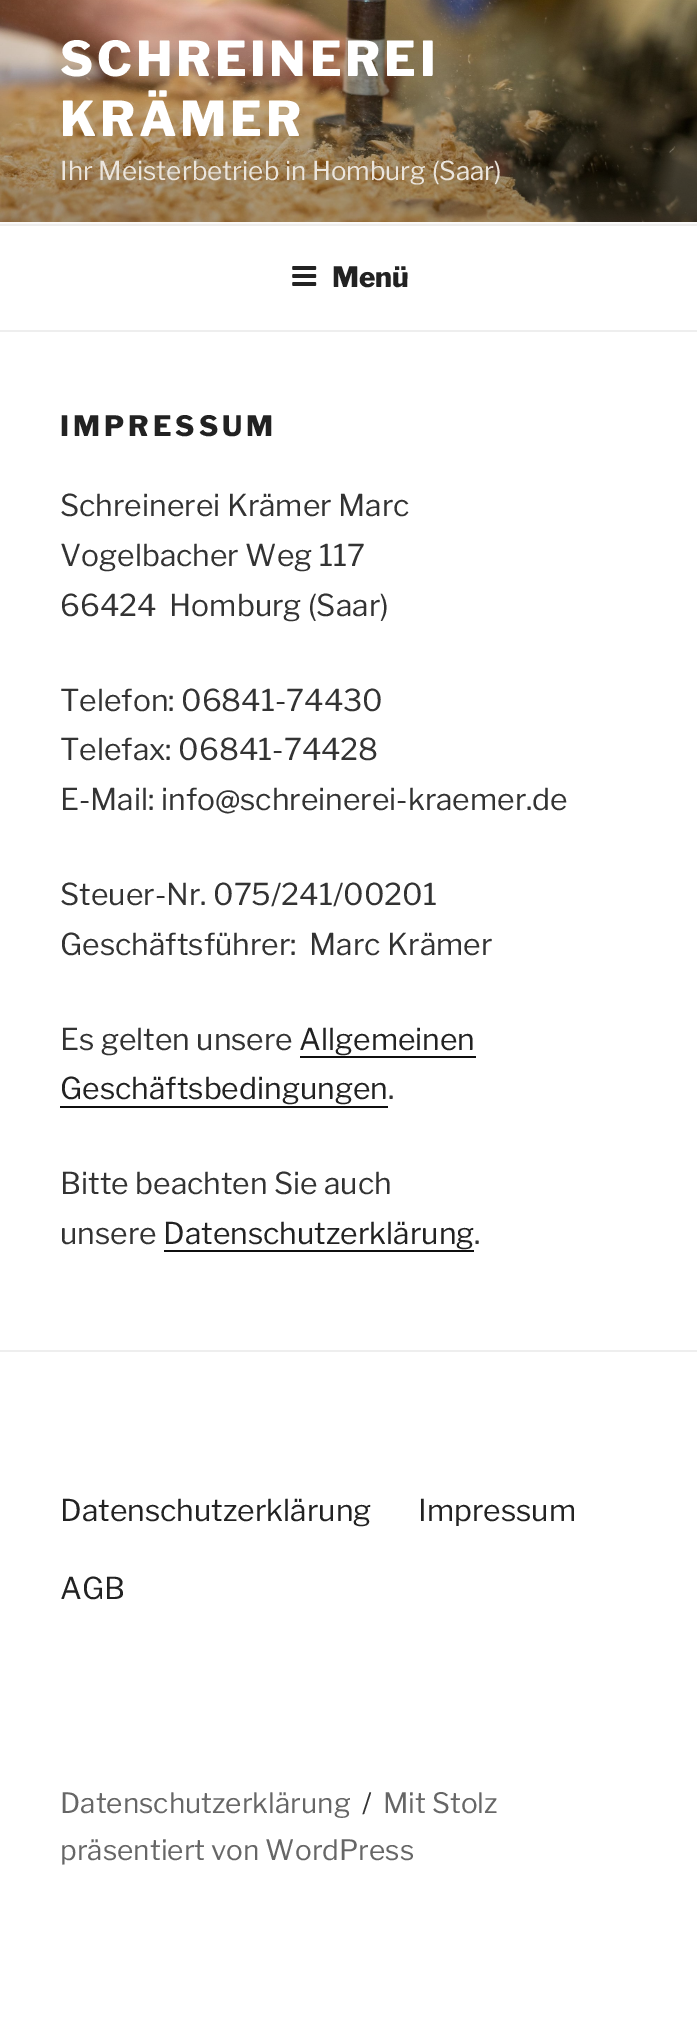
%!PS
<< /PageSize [697 2023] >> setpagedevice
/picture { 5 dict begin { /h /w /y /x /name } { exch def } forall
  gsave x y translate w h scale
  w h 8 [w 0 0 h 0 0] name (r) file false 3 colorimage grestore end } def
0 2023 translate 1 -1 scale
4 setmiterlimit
1 setgray
0 0 697 2023 rectfill
0.98 setgray
0 222 697 2 rectfill
(img1.rgb) 0 0 697 222 picture
/LibreFranklin-Thin [48 0 0 -48 0 0] selectfont
1 setgray
60 76 moveto 3.75 0 (SCHREINEREI) ashow
60 136 moveto 3.75 0 (KRÄMER) ashow
/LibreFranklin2-Thin [26 0 0 -26 0 0] selectfont
0.922 0.898 0.867 setrgbcolor
60 180 moveto (Ihr Meisterbetrieb in Homburg \(Saar\)) show
0.933 setgray
0 224 697 2 rectfill
0 330 697 2 rectfill
(img2.rgb) 292 266 25 20 picture
/LibreFranklin-Thin [28 0 0 -28 0 0] selectfont
0.133 setgray
332 287 moveto (Menü) show
60 436 moveto 4 0 (IMPRESSUM) ashow
/LibreFranklin2-Thin [30 0 0 -30 0 0] selectfont
0.2 setgray
60 516 moveto (Schreinerei Krämer Marc) show
60 566 moveto (Vogelbacher Weg 117) show
60 616 moveto (66424  Homburg \(Saar\)) show
60 711 moveto (Telefon: 06841-74430) show
60 760 moveto (Telefax: 06841-74428) show
60 810 moveto (E-Mail: info@schreinerei-kraemer.de) show
60 905 moveto (Steuer-Nr. 075/241/00201) show
60 955 moveto (Geschäftsführer:  Marc Krämer) show
60 1050 moveto (Es gelten unsere) show
0.133 setgray
299 1050 moveto (Allgemeinen) show
0.059 setgray
300 1056 176 2 rectfill
0.133 setgray
60 1099 moveto (Geschäftsbedingungen) show
0.059 setgray
60 1106 328 2 rectfill
0.2 setgray
388 1099 moveto (.) show
60 1194 moveto (Bitte beachten Sie auch) show
60 1244 moveto (unsere) show
0.133 setgray
163 1244 moveto (Datenschutzerklärung) show
0.059 setgray
164 1250 310 2 rectfill
0.2 setgray
474 1244 moveto (.) show
0.933 setgray
0 1350 697 2 rectfill
0.133 setgray
60 1521 moveto (Datenschutzerklärung) show
418 1521 moveto (Impressum) show
60 1599 moveto (AGB) show
/LibreFranklin2-Thin [28 0 0 -28 0 0] selectfont
0.4 setgray
60 1813 moveto (Datenschutzerklärung) show
0.2 setgray
362 1813 moveto (/) show
0.4 setgray
383 1813 moveto (Mit Stolz) show
60 1860 moveto (präsentiert von WordPress) show
showpage
